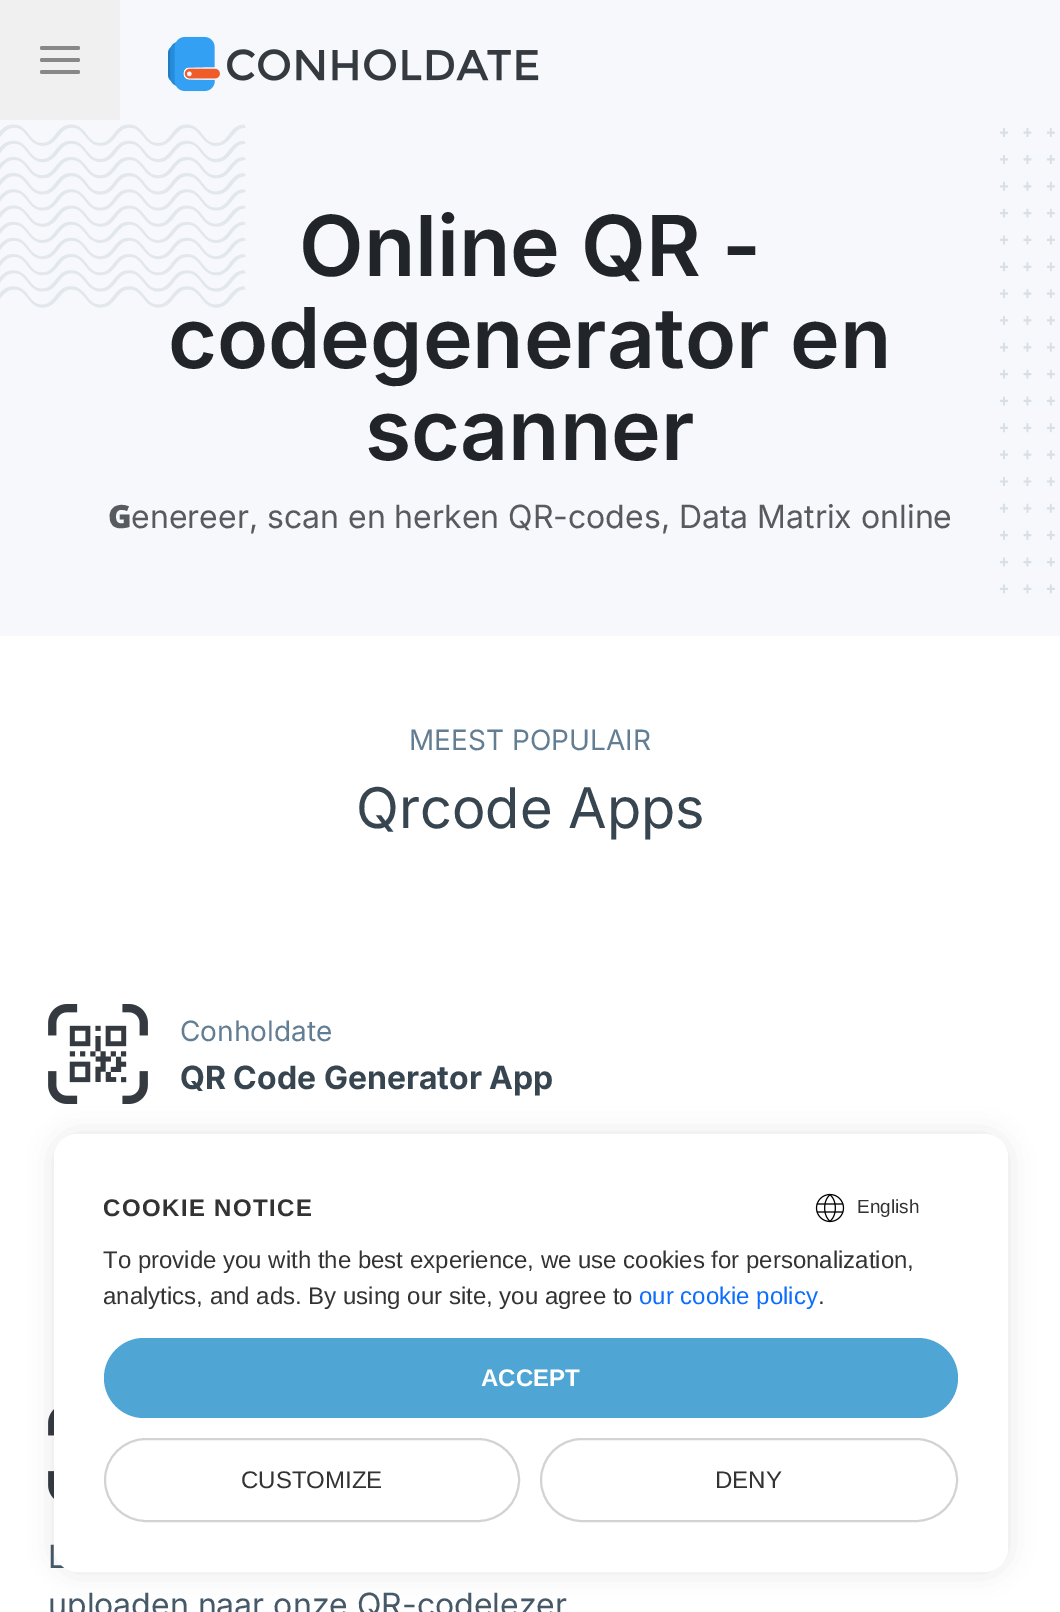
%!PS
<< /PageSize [1060 1612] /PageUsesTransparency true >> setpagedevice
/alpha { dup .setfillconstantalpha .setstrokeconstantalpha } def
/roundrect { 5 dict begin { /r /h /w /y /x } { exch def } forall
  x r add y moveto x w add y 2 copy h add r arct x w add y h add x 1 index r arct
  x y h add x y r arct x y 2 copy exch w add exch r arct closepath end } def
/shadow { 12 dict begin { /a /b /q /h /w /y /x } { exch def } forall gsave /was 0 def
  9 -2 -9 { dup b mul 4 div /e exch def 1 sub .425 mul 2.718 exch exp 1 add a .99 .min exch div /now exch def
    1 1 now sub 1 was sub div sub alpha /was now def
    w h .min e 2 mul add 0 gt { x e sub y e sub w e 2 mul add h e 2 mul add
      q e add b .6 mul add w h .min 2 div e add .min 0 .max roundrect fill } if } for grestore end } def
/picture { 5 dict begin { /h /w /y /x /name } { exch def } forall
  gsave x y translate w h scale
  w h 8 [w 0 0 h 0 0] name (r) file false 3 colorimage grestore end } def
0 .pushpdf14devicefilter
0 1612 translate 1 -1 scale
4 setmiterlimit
1 setgray
0 0 1060 1612 rectfill
0.969 0.973 0.984 setrgbcolor
120 0 940 120 rectfill
0.941 setgray
0 0 120 120 rectfill
0.533 setgray
40 46 40 4 2 roundrect fill
40 58 40 4 2 roundrect fill
40 70 40 4 2 roundrect fill
(img1.rgb) 168 36 371 56 picture
0.969 0.973 0.984 setrgbcolor
0 120 1060 516 rectfill
(img2.rgb) 0 124 1055 470 picture
/Inter-SemiBold [84 0 0 -84 0 0] selectfont
0.129 0.145 0.161 setrgbcolor
299 276 moveto (Online QR -) show
168 368 moveto (codegenerator en) show
365 460 moveto (scanner) show
/NotoSans-Black [32 0 0 -32 0 0] selectfont
0.341 0.353 0.369 setrgbcolor
108 528 moveto (G) show
/Inter-Regular [32 0 0 -32 0 0] selectfont
131 528 moveto (enereer, scan en herken QR-codes, Data Matrix online) show
/Inter-Regular [28 0 0 -28 0 0] selectfont
0.388 0.494 0.573 setrgbcolor
409 750 moveto (MEEST POPULAIR) show
/Inter-Regular [56 0 0 -56 0 0] selectfont
0.212 0.271 0.314 setrgbcolor
356 828 moveto (Qrcode Apps) show
(img3.rgb) 48 1004 100 100 picture
/Inter-Regular [28 0 0 -28 0 0] selectfont
0.388 0.494 0.573 setrgbcolor
180 1041 moveto (Conholdate) show
/Inter-Bold [32 0 0 -32 0 0] selectfont
0.212 0.271 0.314 setrgbcolor
180 1089 moveto (QR Code Generator App) show
(img4.rgb) 48 1409 6 90 picture
/Inter-Regular [32 0 0 -32 0 0] selectfont
0.275 0.349 0.408 setrgbcolor
48 1568 moveto (L) show
48 1616 moveto (uploaden naar onze QR-codelezer) show
0 setgray
54 1134 954 438 24 13 0.1 shadow
1 setgray
54 1134 954 438 24 roundrect fill
newpath 78 1134 moveto 984 1134 lineto 997.5 1134 1008 1144.5 1008 1158 curveto 1008 1232 lineto 54 1232 lineto 54 1158 lineto 54 1144.5 64.5 1134 78 1134 curveto closepath fill
/LiberationSans-Bold [24 0 0 -24 0 0] selectfont
0.2 setgray
103 1216 moveto 1.4 0 (COOKIE NOTICE) ashow
(img5.rgb) 815 1193 30 30 picture
/LiberationSans-Regular [19 0 0 -19 0 0] selectfont
857 1213 moveto (English) show
/LiberationSans-Regular [24 0 0 -24 0 0] selectfont
103 1268 moveto (To provide you with the best experience, we use cookies for personalization,) show
103 1304 moveto (analytics, and ads. By using our site, you agree to) show
0.051 0.431 0.992 setrgbcolor
639 1304 moveto (our cookie policy) show
0.2 setgray
818 1304 moveto (.) show
0.31 0.647 0.827 setrgbcolor
104 1338 854 80 40 roundrect fill
/LiberationSans-Bold [24 0 0 -24 0 0] selectfont
1 setgray
481 1386 moveto (ACCEPT) show
0.827 setgray
2 setlinewidth
105 1439 414 82 41 roundrect stroke
/LiberationSans-Regular [24 0 0 -24 0 0] selectfont
0.2 setgray
241 1488 moveto (CUSTOMIZE) show
0.827 setgray
541 1439 416 82 41 roundrect stroke
0.2 setgray
715 1488 moveto (DENY) show
.poppdf14devicefilter showpage
